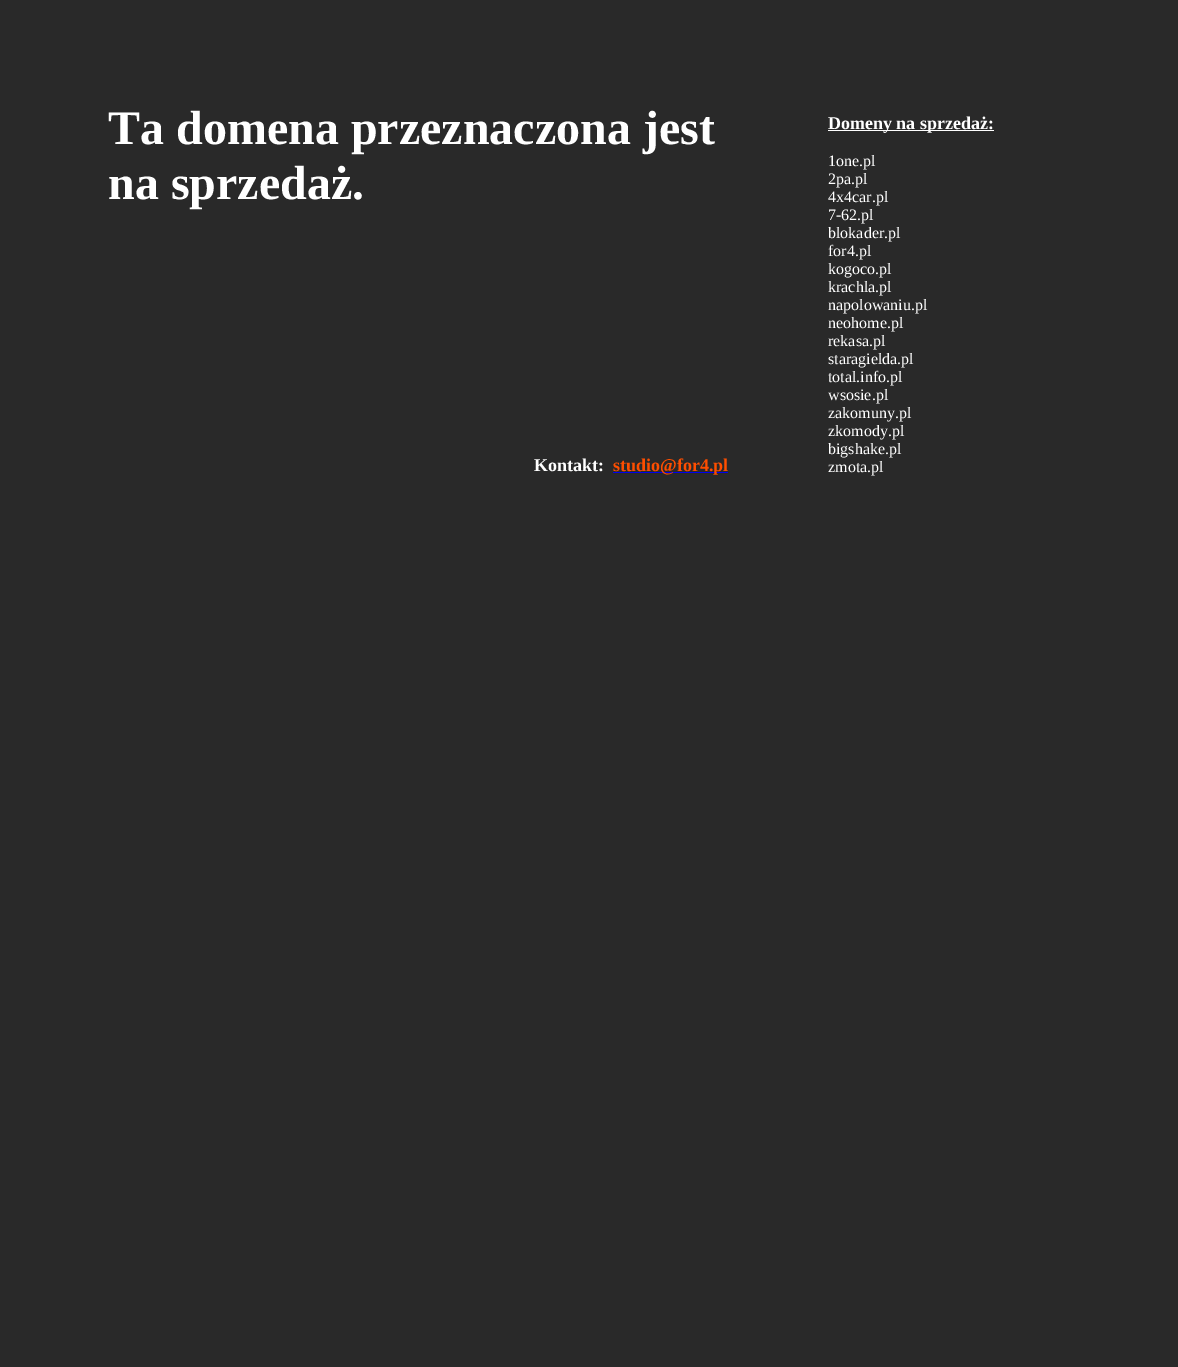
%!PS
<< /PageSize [1178 1367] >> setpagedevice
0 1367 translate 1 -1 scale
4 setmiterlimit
0.161 setgray
0 0 1178 1367 rectfill
/LiberationSerif-Bold [48 0 0 -48 0 0] selectfont
1 setgray
108 144 moveto (Ta domena przeznaczona jest) show
108 199 moveto (na sprzedaż.) show
/LiberationSerif-Bold [18 0 0 -18 0 0] selectfont
534 471 moveto (Kontakt:) show
0 0 0.933 setrgbcolor
613 472 115 1 rectfill
0.996 0.306 0 setrgbcolor
613 471 moveto (studio@for4.pl) show
1 setgray
828 130 166 1 rectfill
828 129 moveto (Domeny na sprzedaż:) show
/LiberationSerif-Regular [16 0 0 -16 0 0] selectfont
828 166 moveto (1one.pl) show
828 184 moveto (2pa.pl) show
828 202 moveto (4x4car.pl) show
828 220 moveto (7-62.pl) show
828 238 moveto (blokader.pl) show
828 256 moveto (for4.pl) show
828 274 moveto (kogoco.pl) show
828 292 moveto (krachla.pl) show
828 310 moveto (napolowaniu.pl) show
828 328 moveto (neohome.pl) show
828 346 moveto (rekasa.pl) show
828 364 moveto (staragielda.pl) show
828 382 moveto (total.info.pl) show
828 400 moveto (wsosie.pl) show
828 418 moveto (zakomuny.pl) show
828 436 moveto (zkomody.pl) show
828 454 moveto (bigshake.pl) show
828 472 moveto (zmota.pl) show
showpage
